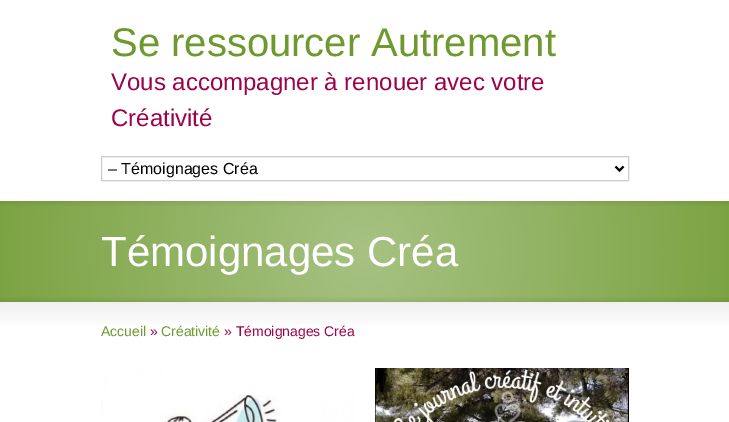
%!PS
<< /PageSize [729 422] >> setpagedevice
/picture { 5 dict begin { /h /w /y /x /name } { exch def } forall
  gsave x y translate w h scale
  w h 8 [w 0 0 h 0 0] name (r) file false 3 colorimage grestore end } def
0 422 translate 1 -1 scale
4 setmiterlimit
1 setgray
0 0 729 422 rectfill
/LiberationSans-Regular [40 0 0 -40 0 0] selectfont
0.427 0.6 0.18 setrgbcolor
111 56 moveto (Se ressourcer Autrement) show
/LiberationSans-Regular [24 0 0 -24 0 0] selectfont
0.612 0.012 0.294 setrgbcolor
111 90 moveto (Vous accompagner à renouer avec votre) show
111 126 moveto (Créativité) show
0.8 setgray
101.5 156.5 527 24 rectstroke
0 setgray
2 setlinewidth
newpath 615.5 166.5 moveto 619.5 170.5 lineto 623.5 166.5 lineto stroke
/LiberationSans-Regular [16 0 0 -16 0 0] selectfont
108 174 moveto (– Témoignages Créa) show
gsave newpath 0 201 moveto 729 201 lineto 729 302 lineto 0 302 lineto closepath clip newpath 365 252 translate 368 368 scale
<< /ShadingType 3 /ColorSpace /DeviceRGB /Coords [0 0 0 0 0 1] /Extend [true true] /Function << /FunctionType 2 /Domain [0 1] /C0 [0.655 0.761 0.51] /C1 [0.486 0.639 0.263] /N 1 >> >> shfill grestore
(img1.rgb) 0 201 729 5 picture
/LiberationSans-Regular [42 0 0 -42 0 0] selectfont
1 setgray
101 266 moveto (Témoignages Créa) show
(img2.rgb) 0 297 729 5 picture
gsave newpath 0 302 moveto 729 302 lineto 729 325 lineto 0 325 lineto closepath clip newpath
<< /ShadingType 2 /ColorSpace /DeviceRGB /Coords [365 302 365 329] /Extend [true true] /Function << /FunctionType 2 /Domain [0 1] /C0 [0.941 0.941 0.941] /C1 [1 1 1] /N 1 >> >> shfill grestore
/LiberationSans-Regular [14 0 0 -14 0 0] selectfont
0.427 0.6 0.18 setrgbcolor
101 336 moveto (Accueil) show
0.612 0.012 0.294 setrgbcolor
150 336 moveto (») show
0.427 0.6 0.18 setrgbcolor
161 336 moveto (Créativité) show
0.612 0.012 0.294 setrgbcolor
224 336 moveto (» Témoignages Créa) show
(img3.rgb) 101 368 254 54 picture
(img4.rgb) 375 368 254 54 picture
showpage
